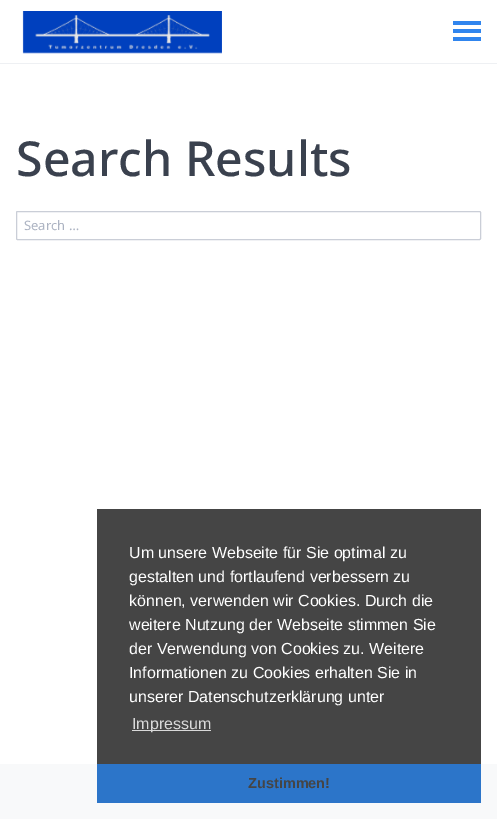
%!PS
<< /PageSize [497 819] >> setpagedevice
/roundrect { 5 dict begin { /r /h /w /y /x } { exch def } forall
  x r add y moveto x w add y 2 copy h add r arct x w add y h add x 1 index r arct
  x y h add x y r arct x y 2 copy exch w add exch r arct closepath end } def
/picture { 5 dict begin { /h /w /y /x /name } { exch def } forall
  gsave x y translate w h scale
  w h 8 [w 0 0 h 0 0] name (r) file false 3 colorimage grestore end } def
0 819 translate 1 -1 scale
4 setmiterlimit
1 setgray
0 0 497 819 rectfill
0.933 0.941 0.953 setrgbcolor
0 63 497 1 rectfill
(img1.rgb) 22 11 200 43 picture
0.188 0.522 0.933 setrgbcolor
453 21 28 4 rectfill
453 29 28 4 rectfill
453 37 28 4 rectfill
/NotoSans-Medium [48.25 0 0 -48.25 0 0] selectfont
0.227 0.255 0.306 setrgbcolor
16 176 moveto (Search Results) show
0.792 0.808 0.843 setrgbcolor
16.5 211.5 464 28 1 roundrect stroke
/NotoSans-Regular [13 0 0 -13 0 0] selectfont
0.675 0.702 0.761 setrgbcolor
24 230 moveto (Search …) show
0.271 setgray
97 509 384 255 rectfill
/LiberationSans-Regular [16 0 0 -16 0 0] selectfont
1 setgray
129 558 moveto (Um unsere Webseite für Sie optimal zu) show
129 582 moveto (gestalten und fortlaufend verbessern zu) show
129 606 moveto (können, verwenden wir Cookies. Durch die) show
129 630 moveto (weitere Nutzung der Webseite stimmen Sie) show
129 654 moveto (der Verwendung von Cookies zu. Weitere) show
129 678 moveto (Informationen zu Cookies erhalten Sie in) show
129 702 moveto (unserer Datenschutzerklärung unter) show
0.855 setgray
132 730 79 1 rectfill
132 729 moveto (Impressum) show
0.973 0.976 0.98 setrgbcolor
0 764 497 55 rectfill
0.173 0.459 0.788 setrgbcolor
97 764 384 39 rectfill
/LiberationSans-Bold [14.5 0 0 -14.5 0 0] selectfont
0.271 setgray
248 788 moveto (Zustimmen!) show
showpage
